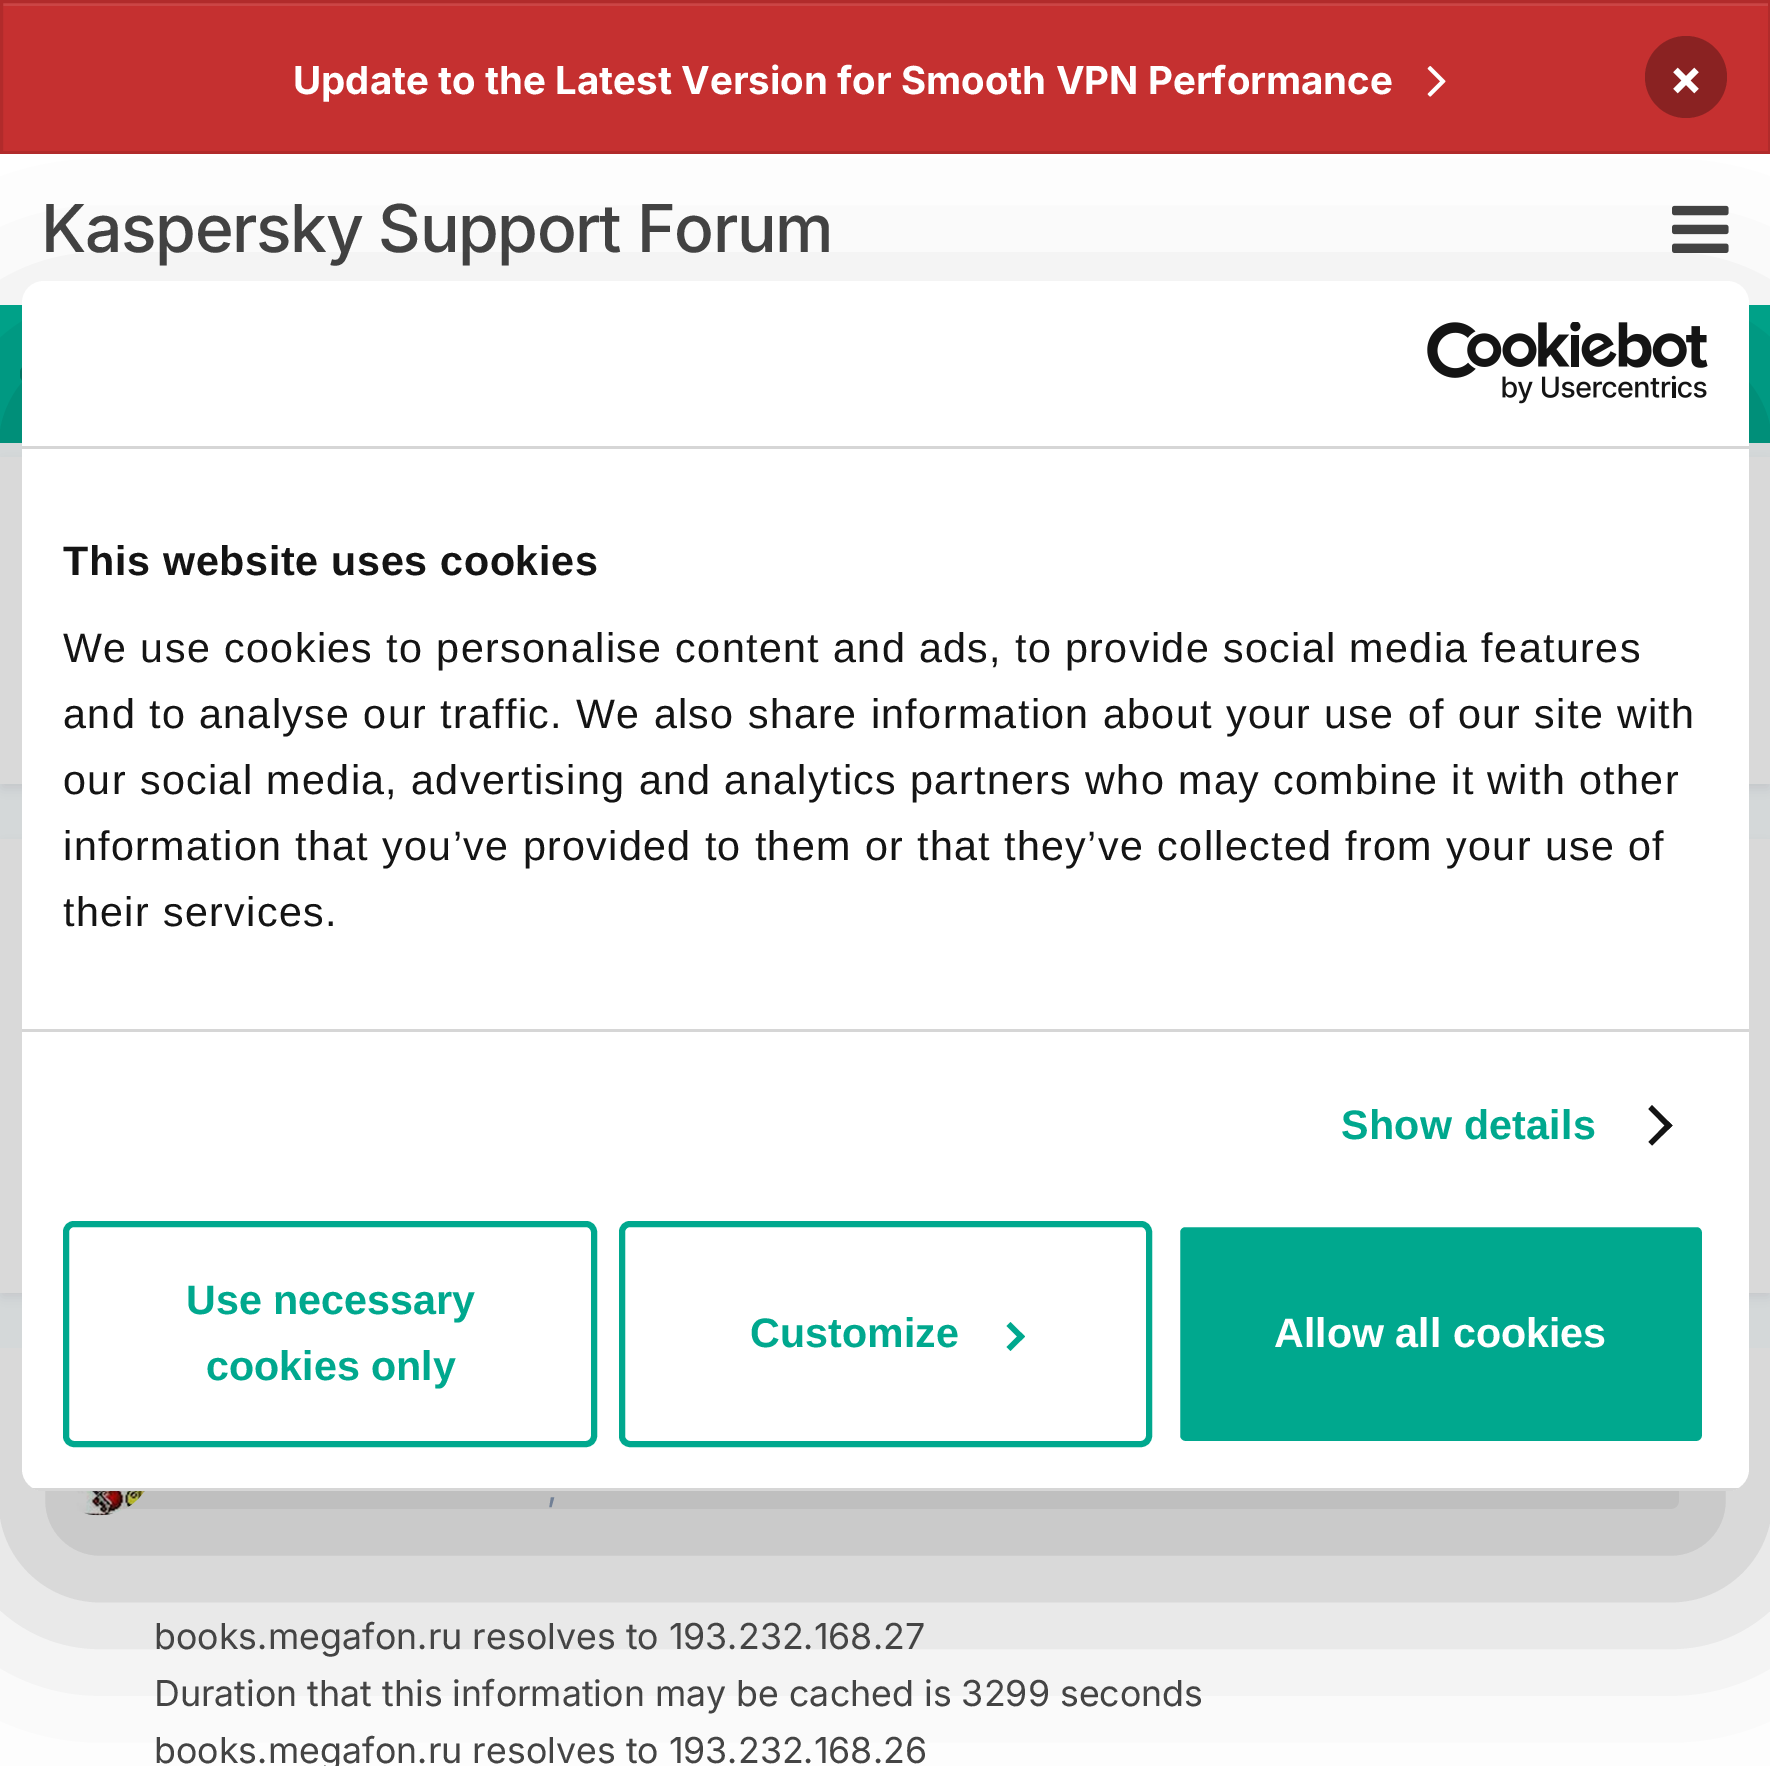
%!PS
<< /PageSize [1770 1766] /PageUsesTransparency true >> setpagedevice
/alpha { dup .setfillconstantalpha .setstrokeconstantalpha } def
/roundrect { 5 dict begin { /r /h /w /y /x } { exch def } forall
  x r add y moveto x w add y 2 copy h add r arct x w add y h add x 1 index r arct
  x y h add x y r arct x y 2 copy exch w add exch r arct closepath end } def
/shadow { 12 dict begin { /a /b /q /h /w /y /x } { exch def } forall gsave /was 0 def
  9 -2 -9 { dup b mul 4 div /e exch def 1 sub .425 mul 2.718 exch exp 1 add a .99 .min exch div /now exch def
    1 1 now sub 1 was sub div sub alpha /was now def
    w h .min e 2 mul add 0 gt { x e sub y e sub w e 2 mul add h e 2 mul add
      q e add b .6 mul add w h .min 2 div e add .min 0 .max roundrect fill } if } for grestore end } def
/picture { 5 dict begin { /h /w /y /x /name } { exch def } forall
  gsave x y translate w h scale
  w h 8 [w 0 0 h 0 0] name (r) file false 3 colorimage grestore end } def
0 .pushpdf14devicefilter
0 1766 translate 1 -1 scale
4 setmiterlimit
0.976 0.992 0.996 setrgbcolor
0 0 1770 1766 rectfill
0.773 0.188 0.188 setrgbcolor
3 6 1765 145 rectfill
0.796 0.271 0.271 setrgbcolor
3 3 1765 3 rectfill
0.694 0.169 0.169 setrgbcolor
3 setlinewidth
1.5 1.5 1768 151 rectstroke
/Inter-Bold [38.5 0 0 -38.5 0 0] selectfont
1 setgray
293 94 moveto (Update to the Latest Version for Smooth VPN Performance) show
(img1.rgb) 1427 66 19 31 picture
0.541 0.133 0.133 setrgbcolor
newpath 1686 77 41 0 360 arc closepath fill
/Inter-Bold [50 0 0 -50 0 0] selectfont
1 setgray
1669 95 moveto (×) show
0 154 1770 151 rectfill
/Inter-Medium [66 0 0 -66 0 0] selectfont
0.267 setgray
41 252 moveto -1.4 0 (Kaspersky Support Forum) ashow
(img2.rgb) 1672 205 57 48 picture
0 0.659 0.557 setrgbcolor
0 305 1770 138 rectfill
0 0.494 0.42 setrgbcolor
newpath 55 374 moveto 55 415 lineto 49 415 44 412 39 405 curveto 21 379 lineto 20 378 20 376 20 374 curveto closepath fill
newpath 55 374 moveto 20 374 lineto 20 372 20 370 21 369 curveto 39 343 lineto 44 336 49 333 55 333 curveto closepath fill
0.176 0.216 0.282 setrgbcolor
3 465 1765 322 0 5.5 0.1 shadow
1 setgray
0 457 1770 327 rectfill
0.176 0.216 0.282 setrgbcolor
3 847 1765 448 0 5.5 0.1 shadow
1 setgray
0 839 1770 454 rectfill
0 1348 1770 418 rectfill
(img4.rgb) 53 1491 92 25 picture
0 setgray
22 369 1727 1210 22 93.5 0.3 shadow
1 setgray
22 281 1727 1210 22 roundrect fill
0.839 setgray
22 446 1727 3 rectfill
(img3.rgb) 1427 322 281 82 picture
22 1029 1727 3 rectfill
/LiberationSans-Bold [41.25 0 0 -41.25 0 0] selectfont
0.078 setgray
63 575 moveto 0.7 0 (This website uses cookies) ashow
/LiberationSans-Regular [41.25 0 0 -41.25 0 0] selectfont
63 662 moveto 1.38 0 (We use cookies to personalise content and ads, to provide social media features) ashow
63 728 moveto 1.38 0 (and to analyse our traffic. We also share information about your use of our site with) ashow
63 794 moveto 1.38 0 (our social media, advertising and analytics partners who may combine it with other) ashow
63 860 moveto 1.38 0 (information that you’ve provided to them or that they’ve collected from your use of) ashow
63 926 moveto 1.38 0 (their services.) ashow
/LiberationSans-Bold [41.25 0 0 -41.25 0 0] selectfont
0 0.659 0.557 setrgbcolor
1341 1139 moveto 0.25 0 (Show details) ashow
0.078 setgray
newpath 1652 1105 moveto 1672.5 1125.5 lineto 1668.5 1129.5 lineto 1648.5 1109 lineto closepath fill
newpath 1668.5 1121.5 moveto 1672.5 1125.5 lineto 1652 1145.5 lineto 1648.5 1142 lineto closepath fill
gsave
22 281 1727 1210 22 roundrect clip newpath
0.839 setgray
33 1488 1705 3 rectfill
grestore
0 0.659 0.557 setrgbcolor
6 setlinewidth
66 1224 528 220 8 roundrect stroke
186 1314 moveto (Use necessary) show
206 1380 moveto (cookies only) show
622 1224 527 220 8 roundrect stroke
750 1347 moveto (Customize) show
newpath 1010.5 1322 moveto 1025 1336.5 lineto 1021 1340.5 lineto 1006.5 1326 lineto closepath fill
newpath 1021 1332.5 moveto 1025 1336.5 lineto 1010.5 1351 lineto 1006.5 1347 lineto closepath fill
1177 1224 528 220 8 roundrect gsave fill grestore
1 setgray
stroke
1274 1347 moveto (Allow all cookies) show
/Inter-Regular [35.75 0 0 -35.75 0 0] selectfont
0.443 0.502 0.588 setrgbcolor
547 1501 moveto (,) show
0.267 setgray
154 1649 moveto (books.megafon.ru resolves to 193.232.168.27) show
154 1706 moveto (Duration that this information may be cached is 3299 seconds) show
154 1763 moveto (books.megafon.ru resolves to 193.232.168.26) show
.poppdf14devicefilter showpage
